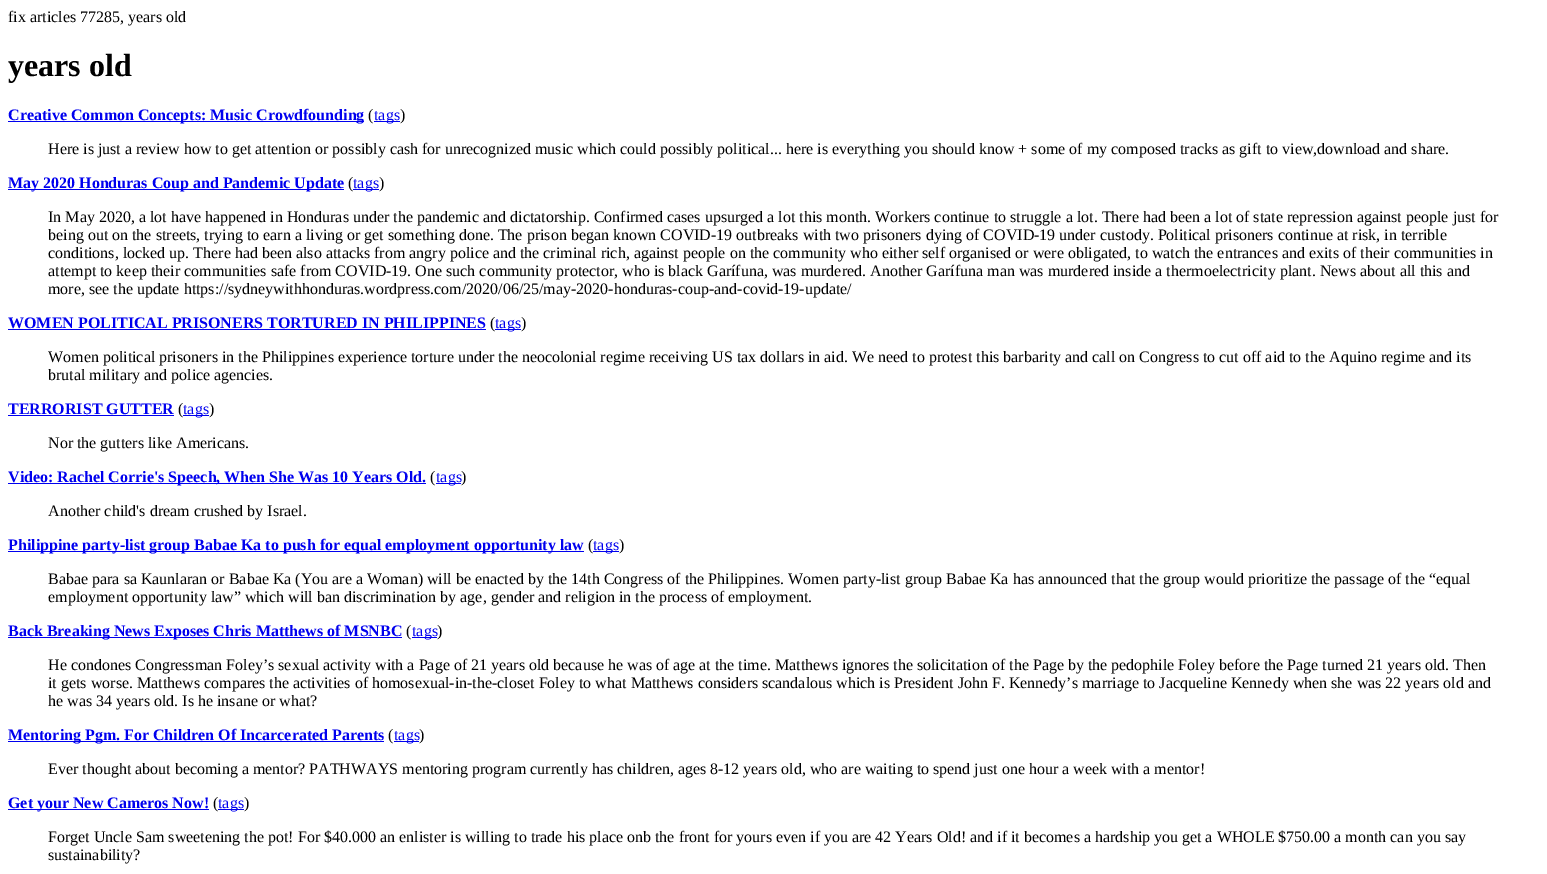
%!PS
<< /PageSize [1547 874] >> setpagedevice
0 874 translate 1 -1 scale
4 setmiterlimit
1 setgray
0 0 1547 874 rectfill
/LiberationSerif-Regular [16 0 0 -16 0 0] selectfont
0 setgray
8 22 moveto (fix articles 77285, years old) show
/LiberationSerif-Bold [32 0 0 -32 0 0] selectfont
8 76 moveto (years old) show
0 0 0.933 setrgbcolor
8 121 356 1 rectfill
/LiberationSerif-Bold [16 0 0 -16 0 0] selectfont
8 120 moveto (Creative Common Concepts: Music Crowdfounding) show
/LiberationSerif-Regular [16 0 0 -16 0 0] selectfont
0 setgray
368 120 moveto (\() show
0 0 0.933 setrgbcolor
374 121 26 1 rectfill
374 120 moveto (tags) show
0 setgray
400 120 moveto (\)) show
48 154 moveto (Here is just a review how to get attention or possibly cash for unrecognized music which could possibly political... here is everything you should know + some of my composed tracks as gift to view,download and share.) show
0 0 0.933 setrgbcolor
8 189 336 1 rectfill
/LiberationSerif-Bold [16 0 0 -16 0 0] selectfont
8 188 moveto (May 2020 Honduras Coup and Pandemic Update) show
/LiberationSerif-Regular [16 0 0 -16 0 0] selectfont
0 setgray
348 188 moveto (\() show
0 0 0.933 setrgbcolor
353 189 26 1 rectfill
353 188 moveto (tags) show
0 setgray
379 188 moveto (\)) show
48 222 moveto (In May 2020, a lot have happened in Honduras under the pandemic and dictatorship. Confirmed cases upsurged a lot this month. Workers continue to struggle a lot. There had been a lot of state repression against people just for) show
48 240 moveto (being out on the streets, trying to earn a living or get something done. The prison began known COVID-19 outbreaks with two prisoners dying of COVID-19 under custody. Political prisoners continue at risk, in terrible) show
48 258 moveto (conditions, locked up. There had been also attacks from angry police and the criminal rich, against people on the community who either self organised or were obligated, to watch the entrances and exits of their communities in) show
48 276 moveto (attempt to keep their communities safe from COVID-19. One such community protector, who is black Garífuna, was murdered. Another Garífuna man was murdered inside a thermoelectricity plant. News about all this and) show
48 294 moveto (more, see the update https://sydneywithhonduras.wordpress.com/2020/06/25/may-2020-honduras-coup-and-covid-19-update/) show
/LiberationSerif-Bold [16 0 0 -16 0 0] selectfont
0 0 0.933 setrgbcolor
8 328 moveto (WOMEN POLITICAL PRISONERS TORTURED IN PHILIPPINES) show
8 329 478 1 rectfill
/LiberationSerif-Regular [16 0 0 -16 0 0] selectfont
0 setgray
490 328 moveto (\() show
0 0 0.933 setrgbcolor
495 329 26 1 rectfill
495 328 moveto (tags) show
0 setgray
521 328 moveto (\)) show
48 362 moveto (Women political prisoners in the Philippines experience torture under the neocolonial regime receiving US tax dollars in aid. We need to protest this barbarity and call on Congress to cut off aid to the Aquino regime and its) show
48 380 moveto (brutal military and police agencies.) show
/LiberationSerif-Bold [16 0 0 -16 0 0] selectfont
0 0 0.933 setrgbcolor
8 414 moveto (TERRORIST GUTTER) show
8 415 166 1 rectfill
/LiberationSerif-Regular [16 0 0 -16 0 0] selectfont
0 setgray
178 414 moveto (\() show
0 0 0.933 setrgbcolor
183 415 26 1 rectfill
183 414 moveto (tags) show
0 setgray
209 414 moveto (\)) show
48 448 moveto (Nor the gutters like Americans.) show
0 0 0.933 setrgbcolor
8 483 418 1 rectfill
/LiberationSerif-Bold [16 0 0 -16 0 0] selectfont
8 482 moveto (Video: Rachel Corrie's Speech, When She Was 10 Years Old.) show
/LiberationSerif-Regular [16 0 0 -16 0 0] selectfont
0 setgray
430 482 moveto (\() show
0 0 0.933 setrgbcolor
436 483 25 1 rectfill
436 482 moveto (tags) show
0 setgray
461 482 moveto (\)) show
48 516 moveto (Another child's dream crushed by Israel.) show
0 0 0.933 setrgbcolor
8 551 576 1 rectfill
/LiberationSerif-Bold [16 0 0 -16 0 0] selectfont
8 550 moveto (Philippine party-list group Babae Ka to push for equal employment opportunity law) show
/LiberationSerif-Regular [16 0 0 -16 0 0] selectfont
0 setgray
588 550 moveto (\() show
0 0 0.933 setrgbcolor
593 551 26 1 rectfill
593 550 moveto (tags) show
0 setgray
619 550 moveto (\)) show
48 584 moveto (Babae para sa Kaunlaran or Babae Ka \(You are a Woman\) will be enacted by the 14th Congress of the Philippines. Women party-list group Babae Ka has announced that the group would prioritize the passage of the “equal) show
48 602 moveto (employment opportunity law” which will ban discrimination by age, gender and religion in the process of employment.) show
0 0 0.933 setrgbcolor
8 637 394 1 rectfill
/LiberationSerif-Bold [16 0 0 -16 0 0] selectfont
8 636 moveto (Back Breaking News Exposes Chris Matthews of MSNBC) show
/LiberationSerif-Regular [16 0 0 -16 0 0] selectfont
0 setgray
406 636 moveto (\() show
0 0 0.933 setrgbcolor
412 637 25 1 rectfill
412 636 moveto (tags) show
0 setgray
437 636 moveto (\)) show
48 670 moveto (He condones Congressman Foley’s sexual activity with a Page of 21 years old because he was of age at the time. Matthews ignores the solicitation of the Page by the pedophile Foley before the Page turned 21 years old. Then) show
48 688 moveto (it gets worse. Matthews compares the activities of homosexual-in-the-closet Foley to what Matthews considers scandalous which is President John F. Kennedy’s marriage to Jacqueline Kennedy when she was 22 years old and) show
48 706 moveto (he was 34 years old. Is he insane or what?) show
0 0 0.933 setrgbcolor
8 741 376 1 rectfill
/LiberationSerif-Bold [16 0 0 -16 0 0] selectfont
8 740 moveto (Mentoring Pgm. For Children Of Incarcerated Parents) show
/LiberationSerif-Regular [16 0 0 -16 0 0] selectfont
0 setgray
388 740 moveto (\() show
0 0 0.933 setrgbcolor
394 741 25 1 rectfill
394 740 moveto (tags) show
0 setgray
419 740 moveto (\)) show
48 774 moveto (Ever thought about becoming a mentor? PATHWAYS mentoring program currently has children, ages 8-12 years old, who are waiting to spend just one hour a week with a mentor!) show
0 0 0.933 setrgbcolor
8 809 201 1 rectfill
/LiberationSerif-Bold [16 0 0 -16 0 0] selectfont
8 808 moveto (Get your New Cameros Now!) show
/LiberationSerif-Regular [16 0 0 -16 0 0] selectfont
0 setgray
213 808 moveto (\() show
0 0 0.933 setrgbcolor
218 809 26 1 rectfill
218 808 moveto (tags) show
0 setgray
244 808 moveto (\)) show
48 842 moveto (Forget Uncle Sam sweetening the pot! For $40.000 an enlister is willing to trade his place onb the front for yours even if you are 42 Years Old! and if it becomes a hardship you get a WHOLE $750.00 a month can you say) show
48 860 moveto (sustainability?) show
showpage
